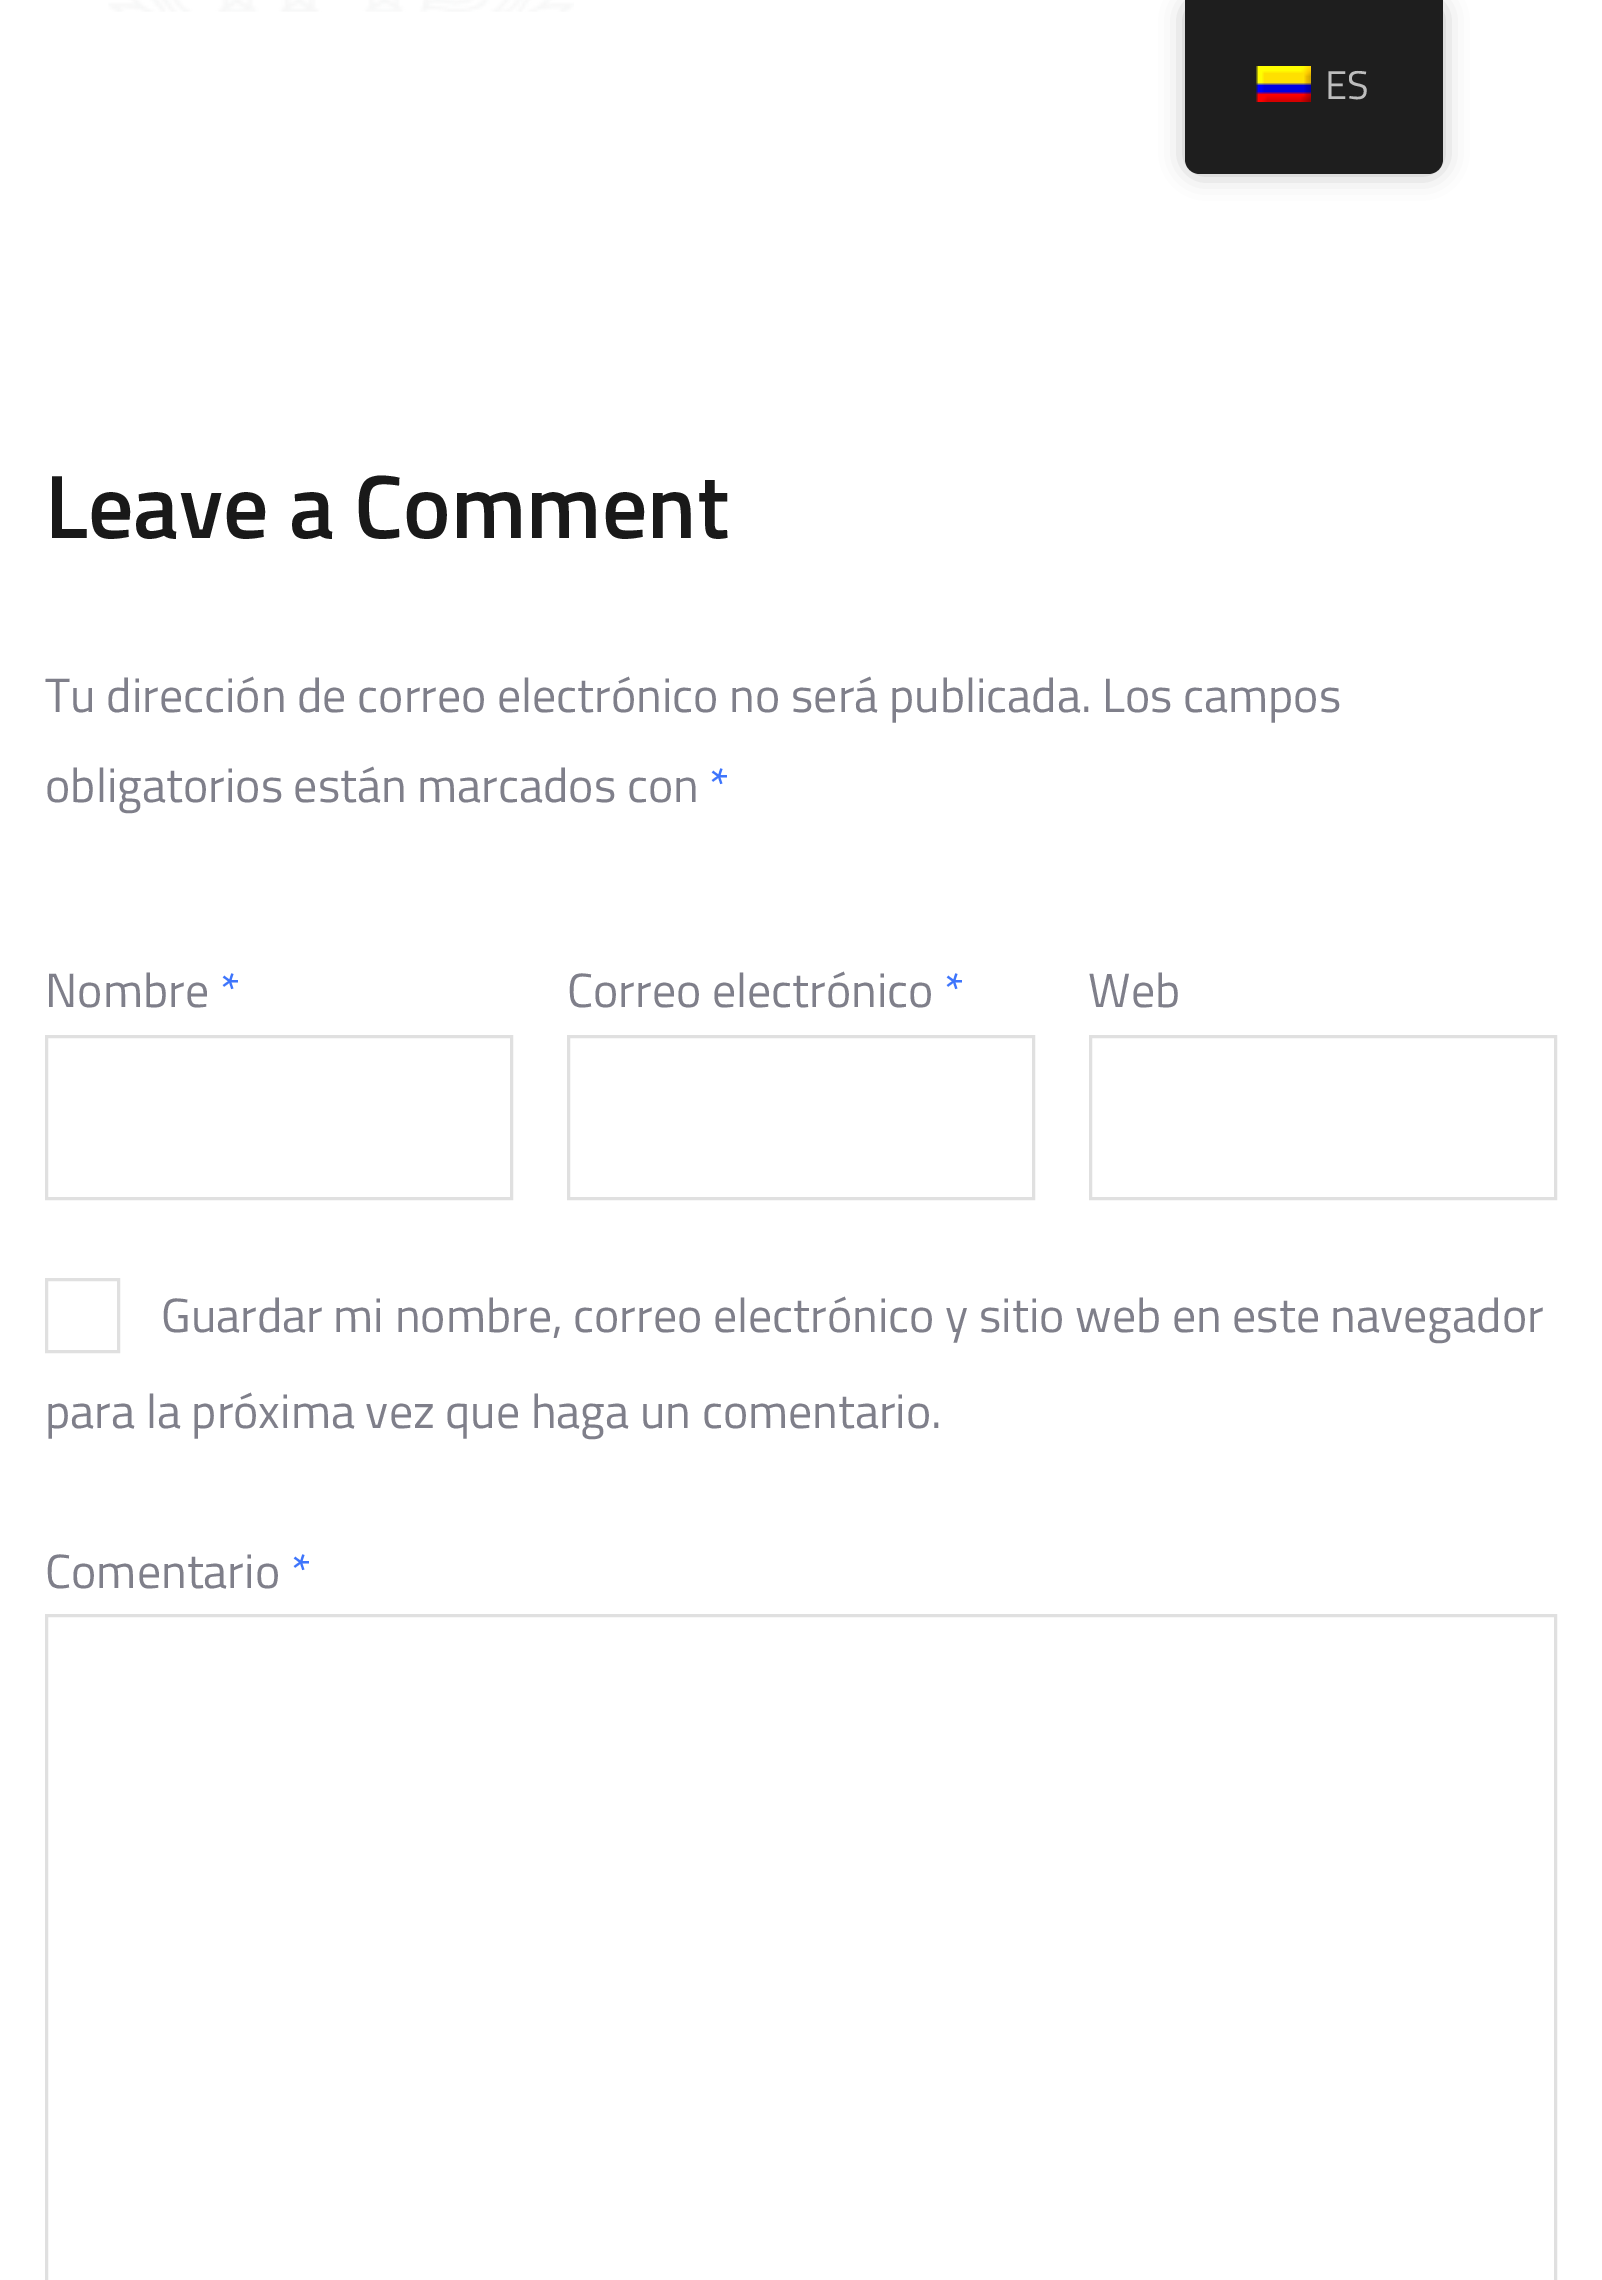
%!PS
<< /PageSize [1602 2280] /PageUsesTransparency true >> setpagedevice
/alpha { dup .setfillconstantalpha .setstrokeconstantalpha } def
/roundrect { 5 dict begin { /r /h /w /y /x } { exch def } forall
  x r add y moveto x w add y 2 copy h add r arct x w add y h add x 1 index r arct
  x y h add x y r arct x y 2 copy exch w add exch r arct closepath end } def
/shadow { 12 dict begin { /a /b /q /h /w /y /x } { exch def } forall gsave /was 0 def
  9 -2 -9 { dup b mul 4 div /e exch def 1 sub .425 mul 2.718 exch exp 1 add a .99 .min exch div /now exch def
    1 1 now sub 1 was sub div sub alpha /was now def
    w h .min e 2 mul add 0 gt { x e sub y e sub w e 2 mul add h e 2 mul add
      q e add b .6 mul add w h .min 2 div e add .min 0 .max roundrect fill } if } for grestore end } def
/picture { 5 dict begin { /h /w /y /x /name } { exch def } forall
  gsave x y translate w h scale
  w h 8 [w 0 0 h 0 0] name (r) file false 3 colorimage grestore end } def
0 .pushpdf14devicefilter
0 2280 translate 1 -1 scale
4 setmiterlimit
1 setgray
0 0 1602 2280 rectfill
0 setgray
1185 0 258 174 15 12 0.25 shadow
0.118 setgray
newpath 1185 0 moveto 1443 0 lineto 1443 159 lineto 1443 167.5 1436.5 174 1428 174 curveto 1200 174 lineto 1191.5 174 1185 167.5 1185 159 curveto closepath fill
(img1.rgb) 1256 66 55 36 picture
/TitilliumWeb-Regular [40 0 0 -40 0 0] selectfont
0.741 setgray
1325 99 moveto (ES) show
(img2.rgb) 108 0 466 12 picture
/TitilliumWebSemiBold-SemiBold [90 0 0 -90 0 0] selectfont
0.098 setgray
45 538 moveto (Leave a Comment) show
/TitilliumWeb-Regular [48 0 0 -48 0 0] selectfont
0.498 0.498 0.541 setrgbcolor
45 712 moveto (Tu dirección de correo electrónico no será publicada. Los campos) show
45 802 moveto (obligatorios están marcados con) show
0.243 0.459 0.988 setrgbcolor
709 802 moveto (*) show
0.498 0.498 0.541 setrgbcolor
45 1007 moveto (Nombre) show
0.243 0.459 0.988 setrgbcolor
220 1007 moveto (*) show
0.878 setgray
3 setlinewidth
46.5 1036.5 465 162 rectstroke
0.498 0.498 0.541 setrgbcolor
567 1007 moveto (Correo electrónico) show
0.243 0.459 0.988 setrgbcolor
944 1007 moveto (*) show
0.878 setgray
568.5 1036.5 465 162 rectstroke
0.498 0.498 0.541 setrgbcolor
1088 1007 moveto (Web) show
0.878 setgray
1090.5 1036.5 465 162 rectstroke
46.5 1279.5 72 72 rectstroke
0.498 0.498 0.541 setrgbcolor
161 1332 moveto (Guardar mi nombre, correo electrónico y sitio web en este navegador) show
45 1428 moveto (para la próxima vez que haga un comentario.) show
45 1588 moveto (Comentario) show
0.243 0.459 0.988 setrgbcolor
291 1588 moveto (*) show
0.878 setgray
46.5 1615.5 1509 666 rectstroke
.poppdf14devicefilter showpage
